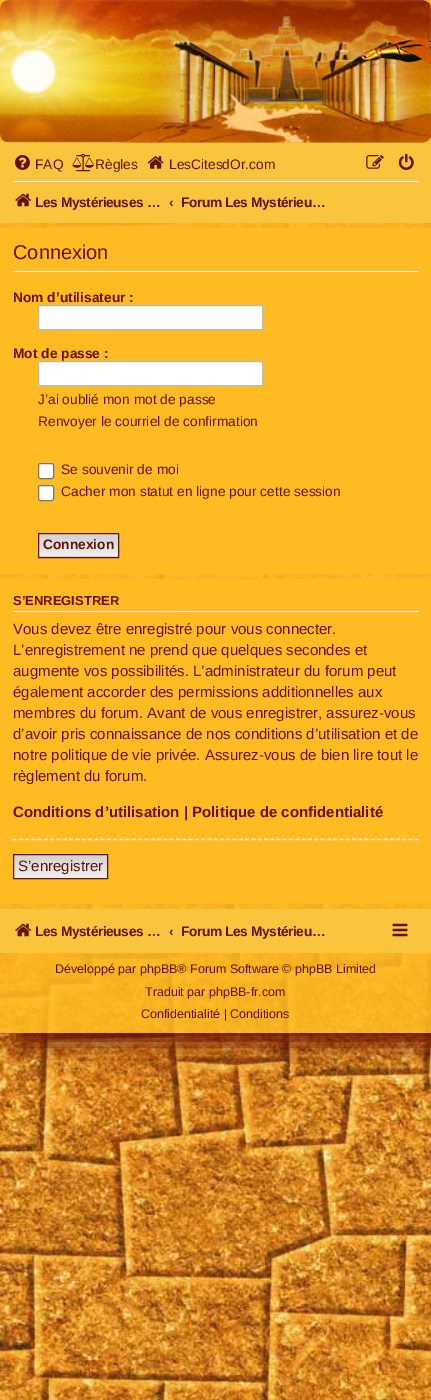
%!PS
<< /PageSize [431 1400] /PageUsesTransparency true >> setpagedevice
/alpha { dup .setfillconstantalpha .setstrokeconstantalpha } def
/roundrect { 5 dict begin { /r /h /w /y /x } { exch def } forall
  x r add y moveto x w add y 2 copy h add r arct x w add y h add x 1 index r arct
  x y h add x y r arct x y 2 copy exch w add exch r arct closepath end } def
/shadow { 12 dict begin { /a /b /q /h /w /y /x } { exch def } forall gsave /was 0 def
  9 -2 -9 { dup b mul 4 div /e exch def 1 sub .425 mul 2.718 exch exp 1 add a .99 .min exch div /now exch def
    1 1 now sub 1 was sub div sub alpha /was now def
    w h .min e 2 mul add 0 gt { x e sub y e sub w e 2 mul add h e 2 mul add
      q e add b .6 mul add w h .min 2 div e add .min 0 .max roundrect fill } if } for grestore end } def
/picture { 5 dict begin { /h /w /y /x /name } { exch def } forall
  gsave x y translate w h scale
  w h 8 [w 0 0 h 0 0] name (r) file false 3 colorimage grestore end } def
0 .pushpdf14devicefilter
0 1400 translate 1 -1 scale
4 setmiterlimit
1 setgray
0 0 431 1400 rectfill
(img1.rgb) 0 1033 431 367 picture
(img2.rgb) 0 0 431 1033 picture
gsave
newpath 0 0 moveto 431 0 lineto 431 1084 lineto 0 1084 lineto closepath 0 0 moveto 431 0 lineto 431 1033 lineto 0 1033 lineto closepath eoclip newpath
0.4 0.067 0 setrgbcolor
13 13 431 1032 0 12.5 1 shadow
grestore
0.87 alpha
1 0.733 0.133 setrgbcolor
0 0 431 1033 rectfill
1 alpha
0.98 0.769 0.239 setrgbcolor
0 141 431 82 rectfill
(img3.rgb) 0 0 431 143 picture
(img4.rgb) 15 155 15 15 picture
/LiberationSans-Regular [13.75 0 0 -13.75 0 0] selectfont
0.4 0.067 0 setrgbcolor
35 169 moveto (FAQ) show
(img5.rgb) 72 153 22 19 picture
95 169 moveto (Règles) show
(img6.rgb) 147 156 17 13 picture
169 169 moveto (LesCitesdOr.com) show
(img7.rgb) 366 155 18 14 picture
(img8.rgb) 398 153 16 17 picture
1 setgray
13 181 406 1 rectfill
(img9.rgb) 15 193 16 14 picture
/LiberationSans-Bold [13.75 0 0 -13.75 0 0] selectfont
0.4 0.067 0 setrgbcolor
35 207 moveto -0.4 0 (Les Mystérieuses …) ashow
169 207 moveto (‹) show
181 207 moveto -0.4 0 (Forum Les Mystérieu…) ashow
1 0.733 0.133 setrgbcolor
0 228 431 346 rectfill
1 setgray
13 271 406 1 rectfill
/LiberationSans-Regular [20 0 0 -20 0 0] selectfont
0.4 0.067 0 setrgbcolor
13 259 moveto (Connexion) show
/LiberationSans-Bold [13.75 0 0 -13.75 0 0] selectfont
13 302 moveto (Nom d’utilisateur :) show
1 setgray
newpath 38.5 305.5 moveto 262.5 305.5 lineto 262.5 329.5 lineto 38.5 329.5 lineto closepath gsave fill grestore
0.706 0.729 0.753 setrgbcolor
stroke
0.4 0.067 0 setrgbcolor
13 358 moveto (Mot de passe :) show
1 setgray
newpath 38.5 361.5 moveto 262.5 361.5 lineto 262.5 385.5 lineto 38.5 385.5 lineto closepath gsave fill grestore
0.706 0.729 0.753 setrgbcolor
stroke
/LiberationSans-Regular [13.75 0 0 -13.75 0 0] selectfont
0.4 0.067 0 setrgbcolor
38 404 moveto (J’ai oublié mon mot de passe) show
38 426 moveto (Renvoyer le courriel de confirmation) show
1 setgray
38.5 463.5 15 15 2 roundrect gsave fill grestore
0.463 setgray
stroke
0.4 0.067 0 setrgbcolor
61 474 moveto (Se souvenir de moi) show
1 setgray
38.5 485.5 15 15 2 roundrect gsave fill grestore
0.463 setgray
stroke
0.4 0.067 0 setrgbcolor
61 496 moveto (Cacher mon statut en ligne pour cette session) show
gsave newpath 39 534 moveto 118 534 lineto 118 556 lineto 39 556 lineto closepath clip newpath
<< /ShadingType 2 /ColorSpace /DeviceRGB /Coords [78 534 78 556] /Extend [true true] /Function << /FunctionType 2 /Domain [0 1] /C0 [0.824 0.824 0.824] /C1 [0.937 0.937 0.937] /N 1 >> >> shfill grestore
gsave newpath 38 556 moveto 119 556 lineto 119 557 lineto 38 557 lineto closepath clip newpath
<< /ShadingType 2 /ColorSpace /DeviceRGB /Coords [78 556 78 579] /Extend [true true] /Function << /FunctionType 2 /Domain [0 1] /C0 [0.824 0.824 0.824] /C1 [0.937 0.937 0.937] /N 1 >> >> shfill grestore
38.5 533.5 80 24 rectstroke
/LiberationSans-Bold [13.75 0 0 -13.75 0 0] selectfont
43 549 moveto (Connexion) show
1 0.733 0.133 setrgbcolor
0 579 431 325 rectfill
1 setgray
13 611 406 1 rectfill
/LiberationSans-Bold [13 0 0 -13 0 0] selectfont
0.4 0.067 0 setrgbcolor
13 605 moveto (S’ENREGISTRER) show
/LiberationSans-Regular [15 0 0 -15 0 0] selectfont
13 634 moveto (Vous devez être enregistré pour vous connecter.) show
13 655 moveto (L’enregistrement ne prend que quelques secondes et) show
13 676 moveto (augmente vos possibilités. L’administrateur du forum peut) show
13 697 moveto (également accorder des permissions additionnelles aux) show
13 718 moveto (membres du forum. Avant de vous enregistrer, assurez-vous) show
13 739 moveto (d’avoir pris connaissance de nos conditions d’utilisation et de) show
13 760 moveto (notre politique de vie privée. Assurez-vous de bien lire tout le) show
13 781 moveto (règlement du forum.) show
/LiberationSans-Bold [15 0 0 -15 0 0] selectfont
13 817 moveto (Conditions d’utilisation | Politique de confidentialité) show
1 setgray
1.2 setlinewidth
[3.75 2.54] 0 setdash
newpath 12.5 839.5 moveto 419 839.5 lineto stroke
gsave newpath 14 855 moveto 107 855 lineto 107 878 lineto 14 878 lineto closepath clip newpath
<< /ShadingType 2 /ColorSpace /DeviceRGB /Coords [60 855 60 878] /Extend [true true] /Function << /FunctionType 2 /Domain [0 1] /C0 [0.824 0.824 0.824] /C1 [0.937 0.937 0.937] /N 1 >> >> shfill grestore
0.4 0.067 0 setrgbcolor
1 setlinewidth
[] 0 setdash
13.5 854.5 94 24 rectstroke
/LiberationSans-Regular [15 0 0 -15 0 0] selectfont
18 871 moveto (S’enregistrer) show
0.98 0.769 0.239 setrgbcolor
0 909 431 44 rectfill
(img9.rgb) 15 923 16 14 picture
/LiberationSans-Bold [13.75 0 0 -13.75 0 0] selectfont
0.4 0.067 0 setrgbcolor
35 936 moveto -0.4 0 (Les Mystérieuses …) ashow
169 936 moveto (‹) show
181 936 moveto -0.4 0 (Forum Les Mystérieu…) ashow
(img10.rgb) 392 923 16 14 picture
/LiberationSans-Regular [12.5 0 0 -12.5 0 0] selectfont
55 973 moveto (Développé par phpBB® Forum Software © phpBB Limited) show
145 996 moveto (Traduit par phpBB-fr.com) show
141 1018 moveto (Confidentialité | Conditions) show
.poppdf14devicefilter showpage
